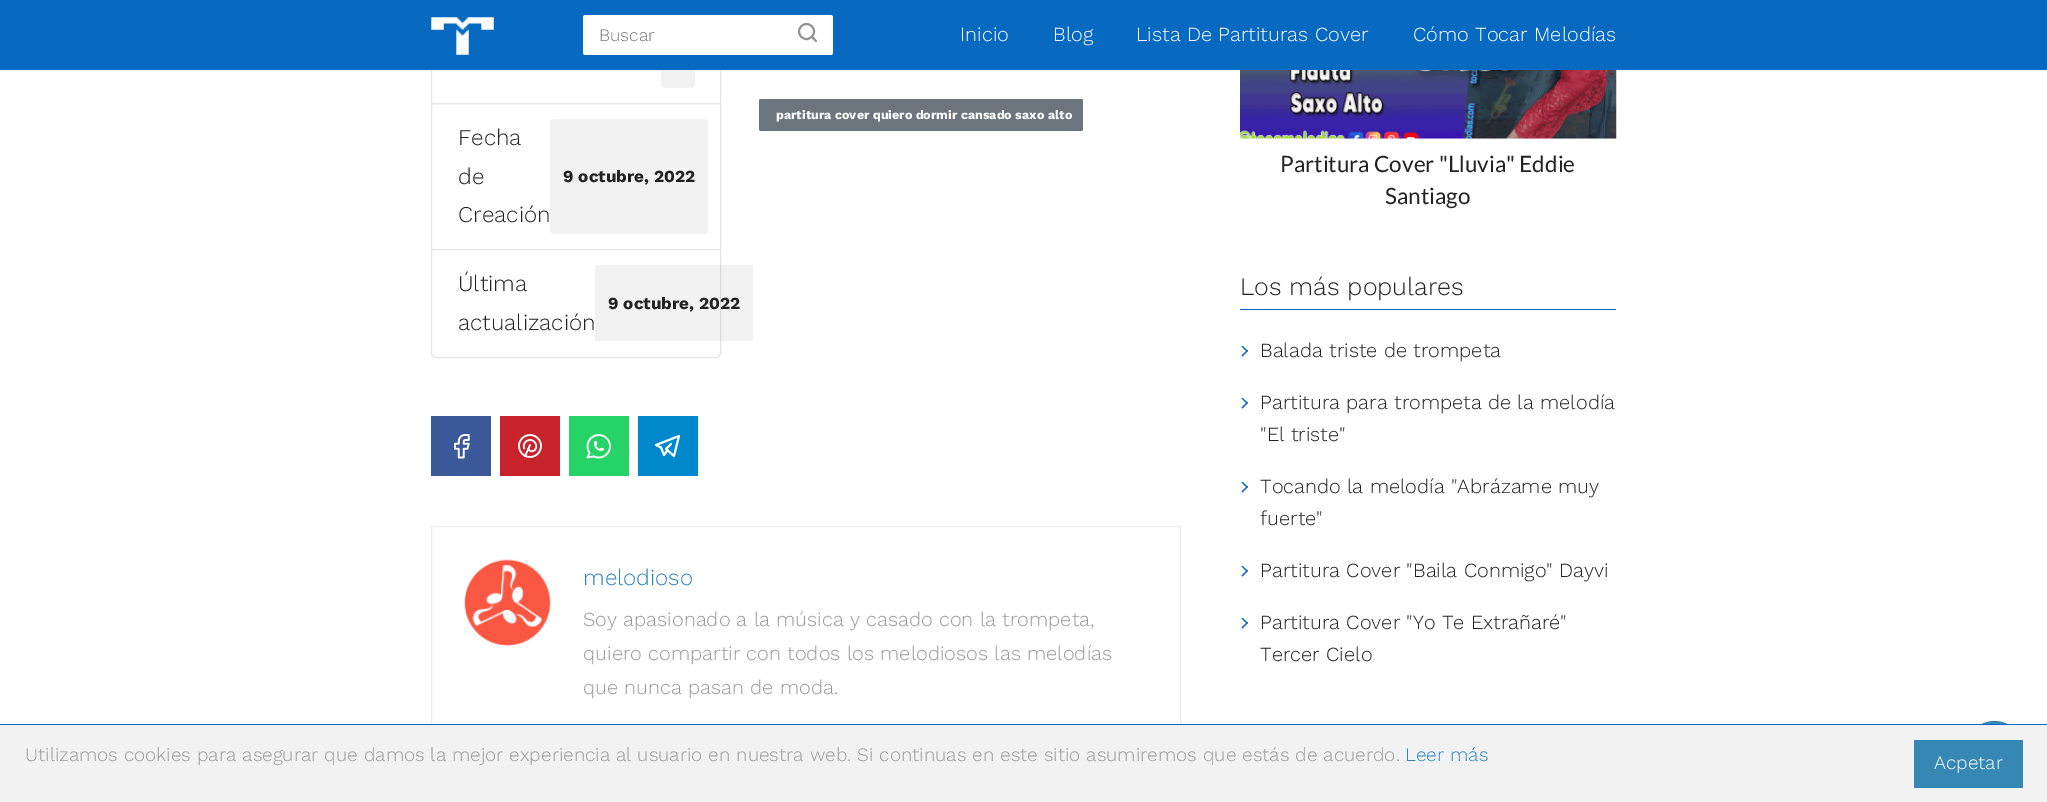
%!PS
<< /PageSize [2047 802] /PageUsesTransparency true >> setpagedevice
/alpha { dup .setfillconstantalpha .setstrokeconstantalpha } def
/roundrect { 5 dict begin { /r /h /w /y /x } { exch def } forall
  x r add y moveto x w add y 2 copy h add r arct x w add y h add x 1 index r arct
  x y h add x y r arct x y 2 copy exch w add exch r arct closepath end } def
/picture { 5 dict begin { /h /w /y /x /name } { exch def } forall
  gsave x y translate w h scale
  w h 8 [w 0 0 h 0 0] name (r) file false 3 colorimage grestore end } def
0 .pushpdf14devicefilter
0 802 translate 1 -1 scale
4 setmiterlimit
1 setgray
0 0 2047 802 rectfill
0.898 setgray
431.5 -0.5 289 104 rectstroke
0.949 setgray
661 11 34 77 4 roundrect fill
0.027 0.412 0.749 setrgbcolor
0 0 2047 70 rectfill
(img1.rgb) 431 17 63 38 picture
1 setgray
583 15 250 40 2.5 roundrect fill
/WorkSans-Light [17.5 0 0 -17.5 0 0] selectfont
0.459 setgray
599 41 moveto (Buscar) show
0.569 setgray
1.9 setlinewidth
newpath 806.5 31.5 7.5 0 360 arc closepath stroke
1 setlinecap
1 setlinejoin
newpath 816 41 moveto 812 37 lineto stroke
/WorkSans-Light [20 0 0 -20 0 0] selectfont
1 setgray
960 41 moveto (Inicio) show
1053 41 moveto (Blog) show
1136 41 moveto (Lista De Partituras Cover) show
1413 41 moveto (Cómo Tocar Melodías) show
0.424 0.459 0.49 setrgbcolor
759 99 324 32 2 roundrect fill
/WorkSans-Bold [12.5 0 0 -12.5 0 0] selectfont
1 setgray
776 119 moveto (partitura cover quiero dormir cansado saxo alto) show
0.898 setgray
1 setlinewidth
0 setlinecap
0 setlinejoin
431.5 103.5 289 146 rectstroke
/WorkSans-Light [22.5 0 0 -22.5 0 0] selectfont
0.133 setgray
458 145 moveto (Fecha) show
458 184 moveto (de) show
0.949 setgray
550 119 158 115 4 roundrect fill
/WorkSans-Bold [17 0 0 -17 0 0] selectfont
0.133 setgray
563 182 moveto (9 octubre, 2022) show
/WorkSans-Light [22.5 0 0 -22.5 0 0] selectfont
458 222 moveto (Creación) show
1 setgray
newpath 431.5 249.5 moveto 720.5 249.5 lineto 720.5 353 lineto 720.5 355.5 718.5 357.5 716 357.5 curveto 436 357.5 lineto 433.5 357.5 431.5 355.5 431.5 353 curveto closepath gsave fill grestore
0.898 setgray
stroke
0.133 setgray
458 291 moveto (Última) show
0.05 alpha
0 setgray
595 265 158 76 rectfill
/WorkSans-Bold [17 0 0 -17 0 0] selectfont
1 alpha
0.133 setgray
608 309 moveto (9 octubre, 2022) show
/WorkSans-Light [22.5 0 0 -22.5 0 0] selectfont
458 330 moveto (actualización) show
0.231 0.349 0.596 setrgbcolor
431 416 60 60 rectfill
(img2.rgb) 454 434 16 25 picture
0.784 0.137 0.173 setrgbcolor
500 416 60 60 rectfill
(img3.rgb) 518 434 24 24 picture
0.145 0.827 0.4 setrgbcolor
569 416 60 60 rectfill
(img4.rgb) 586 434 25 25 picture
0 0.533 0.8 setrgbcolor
638 416 60 60 rectfill
1 setgray
1.9 setlinewidth
1 setlinecap
1 setlinejoin
newpath 671 444 moveto 666 449 lineto 674 456 lineto 679 436 lineto 656 445 lineto 661 447.5 lineto 664 455 lineto 667.5 450 lineto stroke
0.933 setgray
1 setlinewidth
0 setlinecap
0 setlinejoin
431.5 526.5 749 209 rectstroke
(img5.rgb) 464 559 87 87 picture
0.18 0.525 0.757 setrgbcolor
583 585 moveto (melodioso) show
/WorkSans-Light [20 0 0 -20 0 0] selectfont
0.6 setgray
583 626 moveto (Soy apasionado a la música y casado con la trompeta,) show
583 660 moveto (quiero compartir con todos los melodiosos las melodías) show
583 694 moveto (que nunca pasan de moda.) show
0.969 setgray
1240 138 376 1 rectfill
(img6.rgb) 1240 70 377 69 picture
/Lato-Regular [22.5 0 0 -22.5 0 0] selectfont
0.133 setgray
1280 172 moveto (Partitura Cover "Lluvia" Eddie) show
1385 204 moveto (Santiago) show
/WorkSans-Light [25 0 0 -25 0 0] selectfont
1240 295 moveto (Los más populares) show
0.027 0.412 0.749 setrgbcolor
1240 309 376 1 rectfill
newpath 1241.5 346.5 moveto 1242.5 346 lineto 1248 351 lineto 1247 352 lineto closepath fill
newpath 1241.5 355.5 moveto 1247 350 lineto 1248 351 lineto 1242.5 356.5 lineto closepath fill
/WorkSans-Light [20 0 0 -20 0 0] selectfont
0.133 setgray
1260 357 moveto (Balada triste de trompeta) show
0.027 0.412 0.749 setrgbcolor
newpath 1241.5 398.5 moveto 1242.5 398 lineto 1248 403 lineto 1247 404 lineto closepath fill
newpath 1241.5 407.5 moveto 1247 402 lineto 1248 403 lineto 1242.5 408.5 lineto closepath fill
0.133 setgray
1260 409 moveto (Partitura para trompeta de la melodía) show
1260 441 moveto ("El triste") show
0.027 0.412 0.749 setrgbcolor
newpath 1241.5 482.5 moveto 1242.5 482 lineto 1248 487 lineto 1247 488 lineto closepath fill
newpath 1241.5 491.5 moveto 1247 486 lineto 1248 487 lineto 1242.5 492.5 lineto closepath fill
0.133 setgray
1260 493 moveto (Tocando la melodía "Abrázame muy) show
1260 525 moveto (fuerte") show
0.027 0.412 0.749 setrgbcolor
newpath 1241.5 566.5 moveto 1242.5 566 lineto 1248 571 lineto 1247 572 lineto closepath fill
newpath 1241.5 575.5 moveto 1247 570 lineto 1248 571 lineto 1242.5 576.5 lineto closepath fill
0.133 setgray
1260 577 moveto (Partitura Cover "Baila Conmigo" Dayvi) show
0.027 0.412 0.749 setrgbcolor
newpath 1241.5 618.5 moveto 1242.5 618 lineto 1248 623 lineto 1247 624 lineto closepath fill
newpath 1241.5 627.5 moveto 1247 622 lineto 1248 623 lineto 1242.5 628.5 lineto closepath fill
0.133 setgray
1260 629 moveto (Partitura Cover "Yo Te Extrañaré") show
1260 661 moveto (Tercer Cielo) show
0.216 0.529 0.71 setrgbcolor
newpath 1994.5 749.5 28.5 0 360 arc closepath fill
0.949 setgray
0 725 2047 77 rectfill
0.027 0.412 0.749 setrgbcolor
0 724 2047 1 rectfill
/WorkSans-Light [19 0 0 -19 0 0] selectfont
0.6 setgray
25 761 moveto (Utilizamos cookies para asegurar que damos la mejor experiencia al usuario en nuestra web. Si continuas en este sitio asumiremos que estás de acuerdo.) show
0.18 0.525 0.757 setrgbcolor
1405 761 moveto (Leer más) show
0.216 0.529 0.71 setrgbcolor
1914 740 109 48 1 roundrect fill
1 setgray
1934 769 moveto (Acpetar) show
.poppdf14devicefilter showpage
